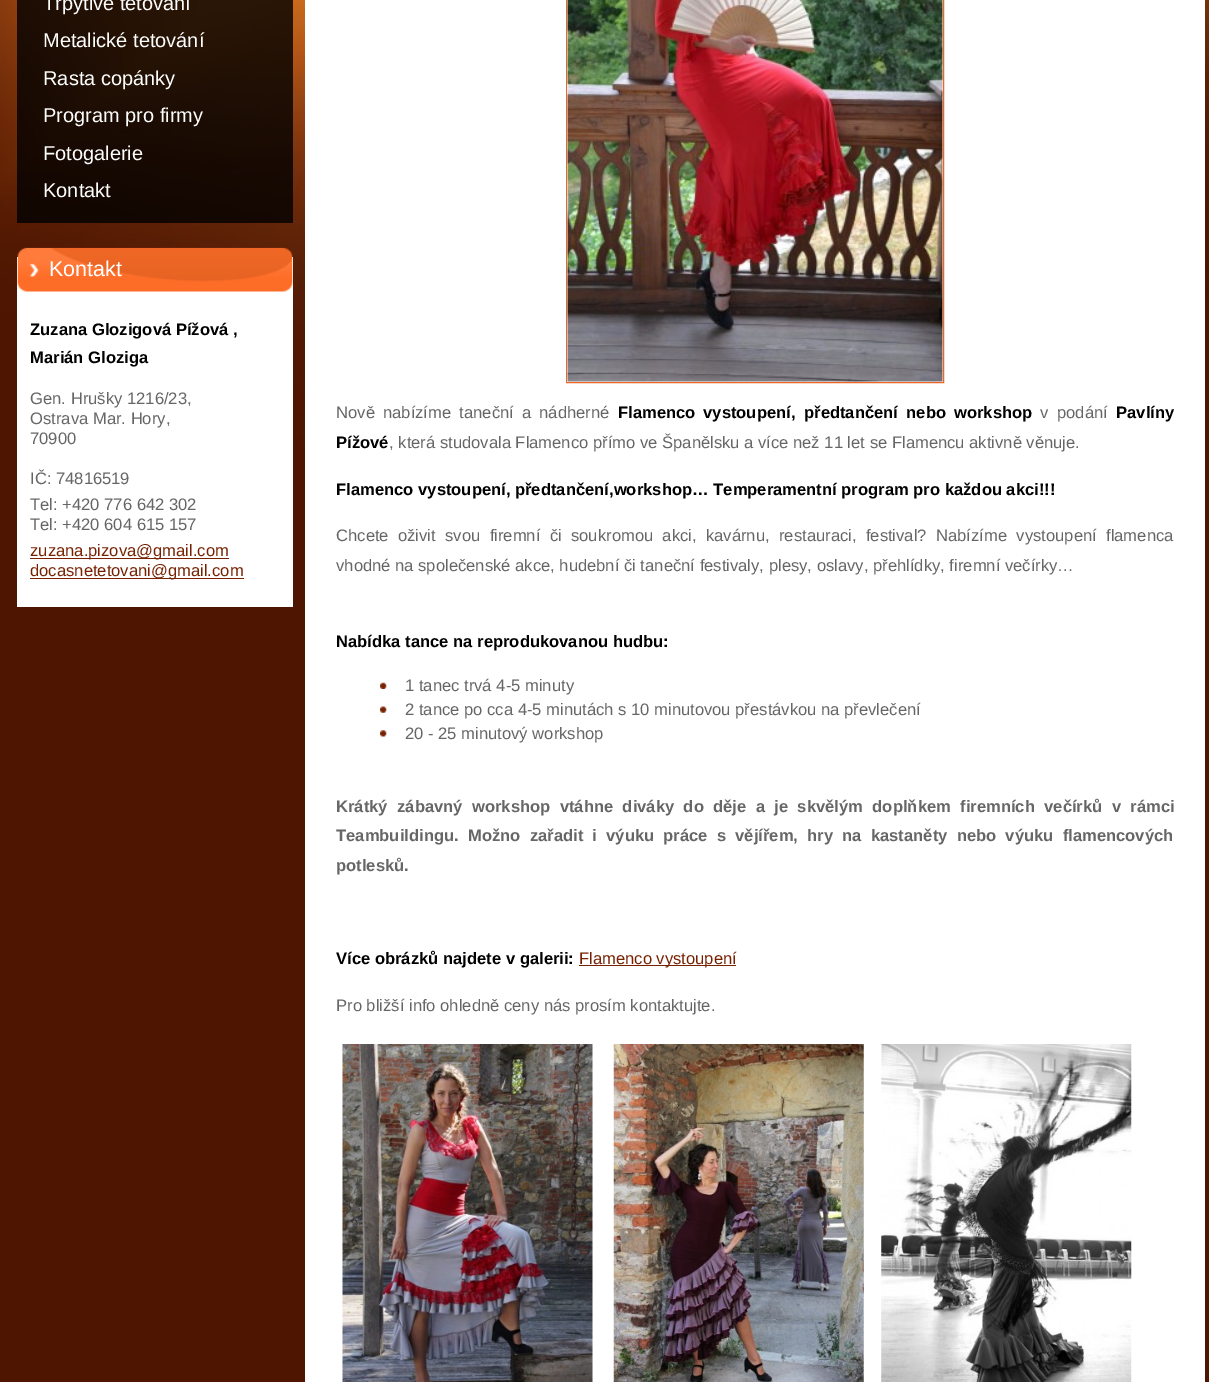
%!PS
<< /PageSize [1209 1382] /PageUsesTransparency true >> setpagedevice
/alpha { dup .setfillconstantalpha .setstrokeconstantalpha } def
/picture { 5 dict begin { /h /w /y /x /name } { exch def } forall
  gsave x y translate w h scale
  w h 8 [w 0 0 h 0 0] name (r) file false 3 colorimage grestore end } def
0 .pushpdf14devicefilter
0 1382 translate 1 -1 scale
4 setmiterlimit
0.306 0.086 0.004 setrgbcolor
0 0 1209 1382 rectfill
(img1.rgb) 0 0 1209 478 picture
1 setgray
305 0 900 1382 rectfill
0.8 alpha
0 setgray
17 0 276 223 rectfill
/LiberationSans-Regular [20 0 0 -20 0 0] selectfont
1 alpha
1 setgray
43 10 moveto (Třpytivé tetování) show
43 47 moveto (Metalické tetování) show
43 85 moveto (Rasta copánky) show
43 122 moveto (Program pro firmy) show
43 160 moveto (Fotogalerie) show
43 197 moveto (Kontakt) show
17 257 276 350 rectfill
(img2.rgb) 17 247 276 45 picture
/LiberationSans-Regular [21.5 0 0 -21.5 0 0] selectfont
49 276 moveto (Kontakt) show
/LiberationSans-Bold [16.6 0 0 -16.6 0 0] selectfont
0 setgray
30 335 moveto (Zuzana Glozigová Pížová ,) show
30 363 moveto (Marián Gloziga) show
/LiberationSans-Regular [16.6 0 0 -16.6 0 0] selectfont
0.4 setgray
30 404 moveto (Gen. Hrušky 1216/23,) show
30 424 moveto (Ostrava Mar. Hory,) show
30 444 moveto (70900) show
30 484 moveto (IČ: 74816519) show
30 510 moveto (Tel: +420 776 642 302) show
30 530 moveto (Tel: +420 604 615 157) show
0.467 0.129 0.004 setrgbcolor
30 558 199 1 rectfill
30 556 moveto (zuzana.pizova@gmail.com) show
30 578 214 1 rectfill
30 576 moveto (docasnetetovani@gmail.com) show
0.933 0.4 0.145 setrgbcolor
566.5 -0.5 377 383 rectstroke
(img3.rgb) 567 0 376 382 picture
0.4 setgray
336 418 moveto 3.5 0 32 (Nově nabízíme taneční a nádherné) widthshow
/LiberationSans-Bold [16.6 0 0 -16.6 0 0] selectfont
0 setgray
618 418 moveto 3 0 32 (Flamenco vystoupení,) widthshow
804 418 moveto 3.5 0 32 (předtančení nebo workshop) widthshow
/LiberationSans-Regular [16.6 0 0 -16.6 0 0] selectfont
0.4 setgray
1040 418 moveto 4 0 32 (v podání) widthshow
/LiberationSans-Bold [16.6 0 0 -16.6 0 0] selectfont
0 setgray
1116 418 moveto (Pavlíny) show
336 448 moveto (Pížové) show
/LiberationSans-Regular [16.6 0 0 -16.6 0 0] selectfont
0.4 setgray
389 448 moveto (, která studovala Flamenco přímo ve Španělsku a více než 11 let se Flamencu aktivně věnuje.) show
/LiberationSans-Bold [16.6 0 0 -16.6 0 0] selectfont
0 setgray
336 495 moveto (Flamenco vystoupení, předtančení,workshop… Temperamentní program pro každou akci!!!) show
/LiberationSans-Regular [16.6 0 0 -16.6 0 0] selectfont
0.4 setgray
336 541 moveto 4.75 0 32 (Chcete oživit svou firemní či soukromou akci, kavárnu, restauraci, festival? Nabízíme vystoupení flamenca) widthshow
336 571 moveto (vhodné na společenské akce, hudební či taneční festivaly, plesy, oslavy, přehlídky, firemní večírky…) show
/LiberationSans-Bold [16.6 0 0 -16.6 0 0] selectfont
0 setgray
336 647 moveto (Nabídka tance na reprodukovanou hudbu:) show
(img4.rgb) 380 682 7 7 picture
/LiberationSans-Regular [16.6 0 0 -16.6 0 0] selectfont
0.4 setgray
405 691 moveto (1 tanec trvá 4-5 minuty) show
(img5.rgb) 380 706 7 7 picture
405 715 moveto (2 tance po cca 4-5 minutách s 10 minutovou přestávkou na převlečení) show
(img6.rgb) 380 730 7 7 picture
405 739 moveto (20 - 25 minutový workshop) show
/LiberationSans-Bold [16.6 0 0 -16.6 0 0] selectfont
336 812 moveto 4.75 0 32 (Krátký zábavný workshop vtáhne diváky do děje a je skvělým doplňkem firemních večírků v rámci) widthshow
336 841 moveto 4.6 0 32 (Teambuildingu. Možno zařadit i výuku práce s vějířem, hry na kastaněty nebo výuku flamencových) widthshow
336 871 moveto (potlesků.) show
0 setgray
336 964 moveto (Více obrázků najdete v galerii:) show
0.467 0.129 0.004 setrgbcolor
579 965 157 1 rectfill
/LiberationSans-Regular [16.6 0 0 -16.6 0 0] selectfont
579 964 moveto (Flamenco vystoupení) show
0.4 setgray
336 1011 moveto (Pro bližší info ohledně ceny nás prosím kontaktujte.) show
(img7.rgb) 342 1044 251 338 picture
(img8.rgb) 613 1044 251 338 picture
(img9.rgb) 881 1044 251 338 picture
.poppdf14devicefilter showpage
